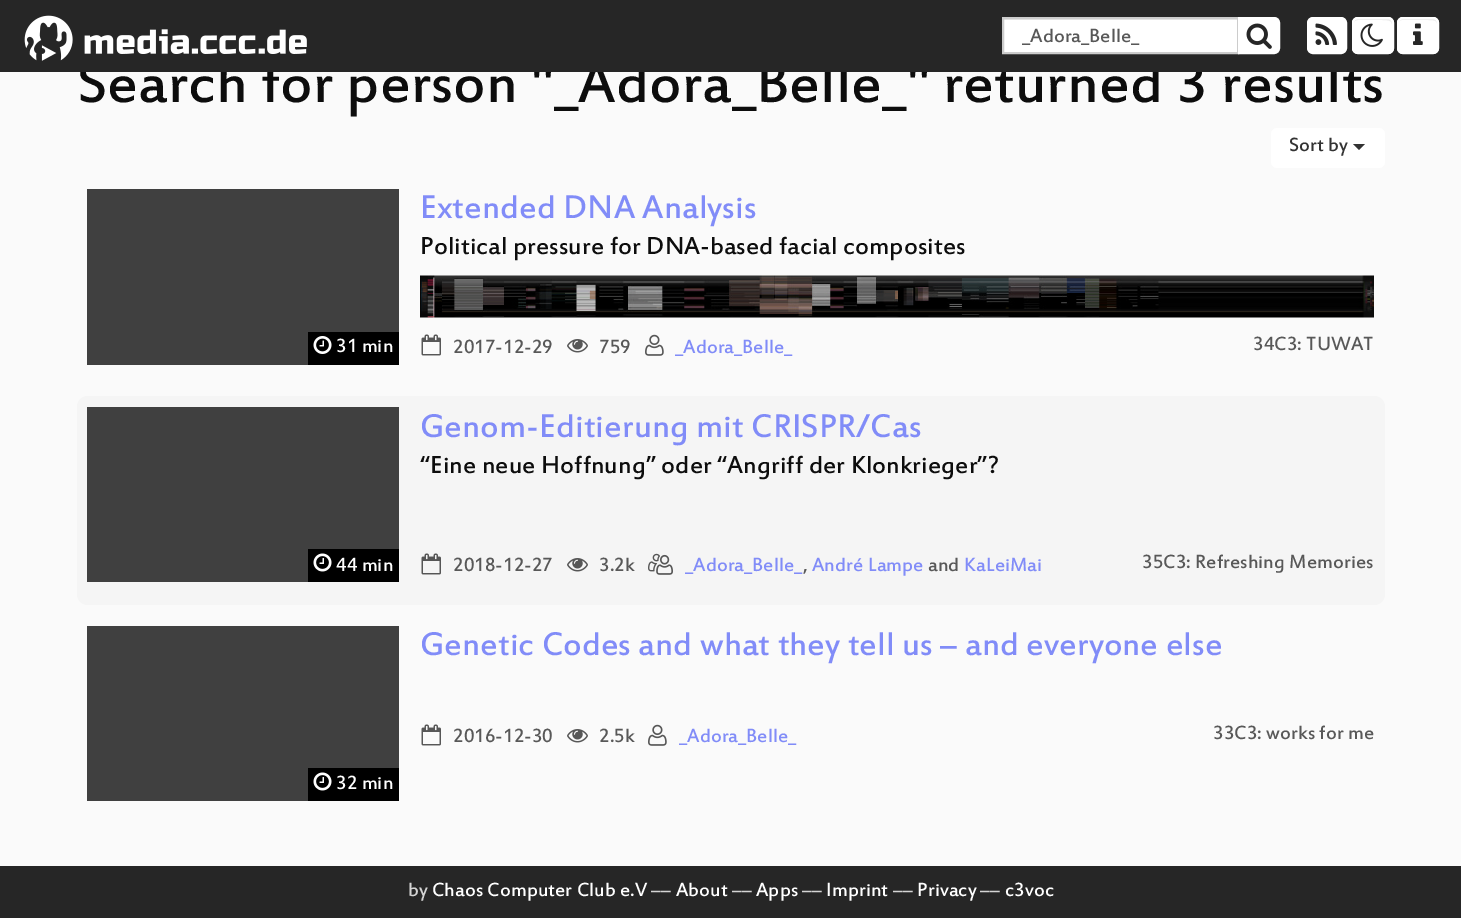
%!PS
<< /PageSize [1461 918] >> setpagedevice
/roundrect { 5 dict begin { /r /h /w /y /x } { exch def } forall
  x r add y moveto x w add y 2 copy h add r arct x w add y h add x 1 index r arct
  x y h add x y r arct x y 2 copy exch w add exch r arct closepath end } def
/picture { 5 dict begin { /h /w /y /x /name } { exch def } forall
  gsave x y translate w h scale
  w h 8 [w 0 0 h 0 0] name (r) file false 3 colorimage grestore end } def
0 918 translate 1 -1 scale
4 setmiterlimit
0.98 setgray
0 0 1461 918 rectfill
/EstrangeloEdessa-Regular [63 0 0 -63 0 0] selectfont
0.051 setgray
77 102 moveto (Search for person "_Adora_Belle_" returned 3 results) show
0.149 setgray
0 0 1461 72 rectfill
(img1.rgb) 24 15 283 46 picture
1 setgray
1004 20 233 32 rectfill
0.925 setgray
1004 19 234 1 rectfill
0.8 setgray
2 setlinewidth
1003 18 235 35 rectstroke
/EstrangeloEdessa-Regular [21 0 0 -21 0 0] selectfont
0.345 setgray
1022 42 moveto (_Adora_Belle_) show
1 setgray
newpath 1239 18 moveto 1274 18 lineto 1277 18 1279 20 1279 23 curveto 1279 48 lineto 1279 51 1277 53 1274 53 curveto 1239 53 lineto closepath gsave fill grestore
stroke
(img2.rgb) 1246 23 26 26 picture
1308 18 38 35 5 roundrect gsave fill grestore
stroke
(img3.rgb) 1315 23 22 22 picture
1352 17 42 37 6 roundrect fill
0.925 setgray
newpath 1358 20 moveto 1382 20 lineto 1389.5 20 1391.5 21 1392 24 curveto 1392 23 lineto 1392 20 1390 18 1387 18 curveto 1358 18 lineto 1355 18 1353 20 1353 23 curveto 1353 28 lineto 1353 25 1353 20 1358 20 curveto closepath 1353 49 moveto 1353 45 lineto closepath eofill
1 setgray
1353 18 40 35 5 roundrect stroke
(img4.rgb) 1360 23 23 24 picture
1397 17 42 37 6 roundrect fill
0.925 setgray
newpath 1402 20 moveto 1428 20 lineto 1434.5 20 1436.5 20.5 1437 23.5 curveto 1437 23 lineto 1437 20 1435 18 1432 18 curveto 1403 18 lineto 1400 18 1398 20 1398 23 curveto 1398 28 lineto 1398 25 1398 20 1402 20 curveto closepath 1398 49.5 moveto 1398 45 lineto closepath eofill
1 setgray
1398 18 40 35 5 roundrect stroke
(img5.rgb) 1413 23 10 22 picture
1271 128 114 40 6 roundrect fill
0.2 setgray
1289 151 moveto (Sort by) show
newpath 1353 144 moveto 1365 144 lineto 1359 150 lineto closepath fill
0.251 setgray
87 189 312 176 rectfill
0 setgray
308 332 91 33 rectfill
(img6.rgb) 313 336 19 18 picture
1 setgray
336 352 moveto (31 min) show
/EstrangeloEdessa-Regular [36 0 0 -36 0 0] selectfont
0.506 0.549 0.973 setrgbcolor
420 218 moveto (Extended DNA Analysis) show
/EstrangeloEdessa-Regular [27 0 0 -27 0 0] selectfont
0.051 setgray
420 254 moveto (Political pressure for DNA-based facial composites) show
(img7.rgb) 420 275 954 43 picture
(img8.rgb) 421 334 20 22 picture
/EstrangeloEdessa-Regular [21 0 0 -21 0 0] selectfont
0.345 setgray
453 353 moveto (2017-12-29) show
(img9.rgb) 567 339 21 14 picture
599 353 moveto (759) show
(img10.rgb) 645 334 19 22 picture
0.506 0.549 0.973 setrgbcolor
675 353 moveto (_Adora_Belle_) show
0.345 setgray
1253 350 moveto (34C3: TUWAT) show
0.961 setgray
77 396 1308 209 11 roundrect fill
0.251 setgray
87 407 312 175 rectfill
0 setgray
308 549 91 33 rectfill
(img11.rgb) 313 553 19 19 picture
1 setgray
336 571 moveto (44 min) show
/EstrangeloEdessa-Regular [36 0 0 -36 0 0] selectfont
0.506 0.549 0.973 setrgbcolor
420 437 moveto (Genom-Editierung mit CRISPR/Cas) show
/EstrangeloEdessa-Regular [27 0 0 -27 0 0] selectfont
0.051 setgray
420 473 moveto (“Eine neue Hoffnung” oder “Angriff der Klonkrieger”?) show
(img12.rgb) 421 553 20 22 picture
/EstrangeloEdessa-Regular [21 0 0 -21 0 0] selectfont
0.345 setgray
453 571 moveto (2018-12-27) show
(img13.rgb) 567 558 21 14 picture
599 571 moveto (3.2k) show
(img14.rgb) 648 553 25 22 picture
0.506 0.549 0.973 setrgbcolor
685 571 moveto (_Adora_Belle_) show
0.345 setgray
803 571 moveto (,) show
0.506 0.549 0.973 setrgbcolor
812 571 moveto (André Lampe) show
0.345 setgray
928 571 moveto (and) show
0.506 0.549 0.973 setrgbcolor
964 571 moveto (KaLeiMai) show
0.345 setgray
1142 568 moveto (35C3: Refreshing Memories) show
/EstrangeloEdessa-Regular [36 0 0 -36 0 0] selectfont
0.506 0.549 0.973 setrgbcolor
420 655 moveto (Genetic Codes and what they tell us – and everyone else) show
(img8.rgb) 421 724 20 22 picture
/EstrangeloEdessa-Regular [21 0 0 -21 0 0] selectfont
0.345 setgray
453 742 moveto (2016-12-30) show
(img9.rgb) 567 729 21 14 picture
599 742 moveto (2.5k) show
(img10.rgb) 648 724 19 22 picture
0.506 0.549 0.973 setrgbcolor
679 742 moveto (_Adora_Belle_) show
0.345 setgray
1213 739 moveto (33C3: works for me) show
0.251 setgray
87 626 312 175 rectfill
0 setgray
308 768 91 33 rectfill
(img11.rgb) 313 772 19 19 picture
1 setgray
336 789 moveto (32 min) show
0.149 setgray
0 866 1461 52 rectfill
0.831 setgray
408 896 moveto (by) show
1 setgray
432 896 moveto (Chaos Computer Club e.V) show
0.831 setgray
651 896 moveto (––) show
1 setgray
676 896 moveto (About) show
0.831 setgray
732 896 moveto (––) show
1 setgray
756 896 moveto (Apps) show
0.831 setgray
802 896 moveto (––) show
1 setgray
826 896 moveto (Imprint) show
0.831 setgray
893 896 moveto (––) show
1 setgray
917 896 moveto (Privacy) show
0.831 setgray
980 896 moveto (––) show
1 setgray
1005 896 moveto (c3voc) show
showpage
